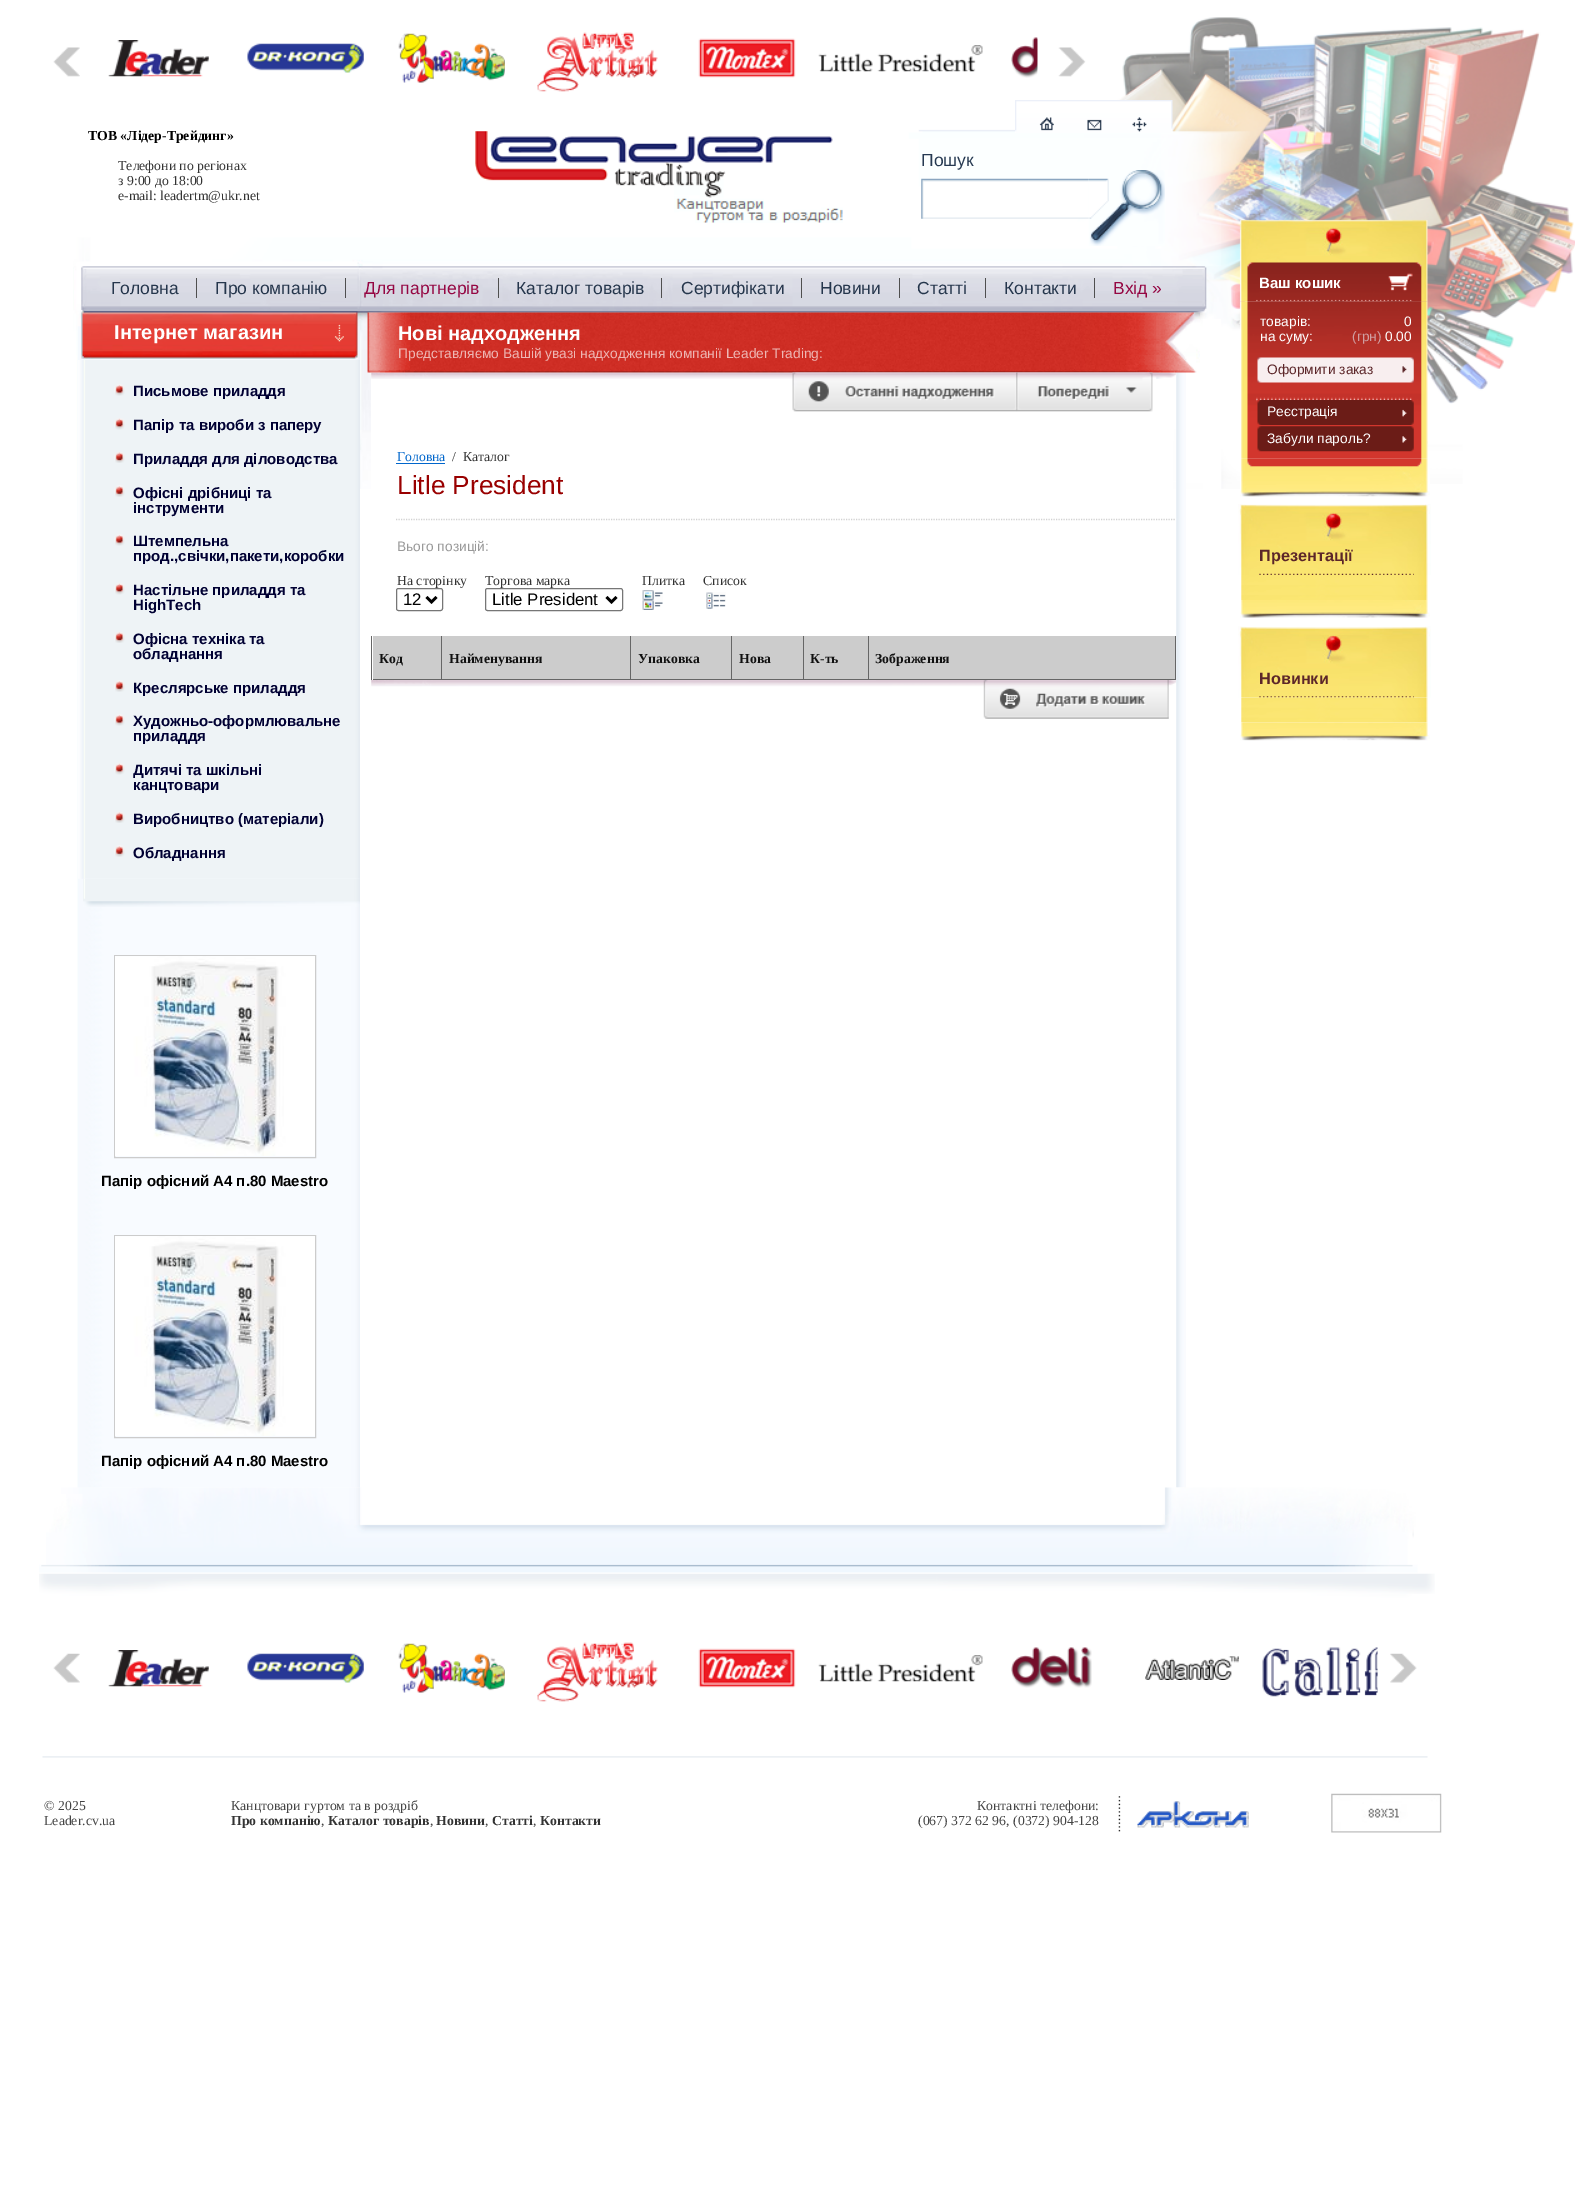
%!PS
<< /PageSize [1587 2193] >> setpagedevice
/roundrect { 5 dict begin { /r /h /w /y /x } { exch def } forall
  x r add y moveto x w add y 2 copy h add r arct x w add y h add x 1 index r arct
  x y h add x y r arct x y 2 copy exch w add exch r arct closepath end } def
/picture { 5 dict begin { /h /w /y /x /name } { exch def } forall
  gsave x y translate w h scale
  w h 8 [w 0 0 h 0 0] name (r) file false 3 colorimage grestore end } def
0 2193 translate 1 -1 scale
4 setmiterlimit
1 setgray
0 0 1587 2193 rectfill
(img1.rgb) 73 17 1502 472 picture
(img2.rgb) 53 47 27 30 picture
(img3.rgb) 108 40 101 37 picture
(img4.rgb) 247 43 117 30 picture
(img5.rgb) 398 33 107 50 picture
(img6.rgb) 537 32 121 60 picture
(img7.rgb) 698 38 98 40 picture
(img8.rgb) 818 45 165 27 picture
(img9.rgb) 1011 37 27 41 picture
(img10.rgb) 1058 47 28 30 picture
(img11.rgb) 1015 100 158 33 picture
(img12.rgb) 1039 117 15 14 picture
(img13.rgb) 1087 119 15 12 picture
(img14.rgb) 1132 117 15 15 picture
/LiberationSerif-Bold [13.75 0 0 -13.75 0 0] selectfont
0 setgray
88 140 moveto (ТОВ «Лідер-Трейдинг») show
/LiberationSerif-Regular [13.75 0 0 -13.75 0 0] selectfont
0.2 setgray
118 170 moveto (Телефони по регіонах) show
118 185 moveto (з 9:00 до 18:00) show
118 200 moveto (e-mail: leadertm@ukr.net) show
(img15.rgb) 475 131 368 92 picture
/LiberationSans-Regular [17.5 0 0 -17.5 0 0] selectfont
0.153 0.227 0.322 setrgbcolor
921 166 moveto (Пошук) show
(img16.rgb) 921 178 168 41 picture
(img17.rgb) 1088 170 77 76 picture
0.604 0.702 0.792 setrgbcolor
1088 179 1 1 rectfill
0.31 setgray
196 278 1 20 rectfill
0.145 0.212 0.298 setrgbcolor
111 294 moveto (Головна) show
0.31 setgray
345 278 1 20 rectfill
0.145 0.212 0.298 setrgbcolor
215 294 moveto (Про компанію) show
0.31 setgray
498 278 1 20 rectfill
0.584 0.027 0.263 setrgbcolor
364 294 moveto (Для партнерів) show
0.31 setgray
661 278 1 20 rectfill
0.145 0.212 0.298 setrgbcolor
516 294 moveto (Каталог товарів) show
0.31 setgray
801 278 1 20 rectfill
0.145 0.212 0.298 setrgbcolor
681 294 moveto (Сертифікати) show
0.31 setgray
899 278 1 20 rectfill
0.145 0.212 0.298 setrgbcolor
820 294 moveto (Новини) show
0.31 setgray
985 278 1 20 rectfill
0.145 0.212 0.298 setrgbcolor
917 294 moveto (Статті) show
0.31 setgray
1094 278 1 20 rectfill
0.145 0.212 0.298 setrgbcolor
1004 294 moveto (Контакти) show
0.584 0.027 0.263 setrgbcolor
1113 294 moveto (Вхід ») show
(img19.rgb) 77 326 283 1162 picture
(img18.rgb) 81 311 277 48 picture
/LiberationSans-Bold [20 0 0 -20 0 0] selectfont
1 setgray
114 339 moveto (Інтернет магазин) show
(img20.rgb) 78 360 282 519 picture
(img21.rgb) 114 384 11 12 picture
/LiberationSans-Bold [15 0 0 -15 0 0] selectfont
0 0 0.2 setrgbcolor
133 396 moveto (Письмове приладдя) show
(img22.rgb) 114 418 11 12 picture
133 430 moveto (Папір та вироби з паперу) show
(img23.rgb) 114 452 11 11 picture
133 464 moveto (Приладдя для діловодства) show
(img24.rgb) 114 485 11 12 picture
133 498 moveto (Офісні дрібниці та) show
133 513 moveto (інструменти) show
(img21.rgb) 114 534 11 12 picture
133 546 moveto (Штемпельна) show
133 561 moveto (прод.,свічки,пакети,коробки) show
(img25.rgb) 114 583 11 12 picture
133 595 moveto (Настільне приладдя та) show
133 610 moveto (HighTech) show
(img23.rgb) 114 632 11 11 picture
133 644 moveto (Офісна техніка та) show
133 659 moveto (обладнання) show
(img24.rgb) 114 680 11 12 picture
133 693 moveto (Креслярське приладдя) show
(img21.rgb) 114 714 11 12 picture
133 726 moveto (Художньо-оформлювальне) show
133 741 moveto (приладдя) show
(img22.rgb) 114 763 11 12 picture
133 775 moveto (Дитячі та шкільні) show
133 790 moveto (канцтовари) show
(img23.rgb) 114 812 11 11 picture
133 824 moveto (Виробництво \(матеріали\)) show
(img24.rgb) 114 845 11 12 picture
133 858 moveto (Обладнання) show
(img26.rgb) 83 879 277 28 picture
0.8 setgray
114.5 955.5 201 202 rectstroke
(img27.rgb) 115 956 200 200 picture
0 setgray
101 1186 moveto (Папір офісний А4 п.80 Maestro) show
0.8 setgray
114.5 1235.5 201 202 rectstroke
(img27.rgb) 115 1236 200 200 picture
0 setgray
101 1466 moveto (Папір офісний А4 п.80 Maestro) show
1 setgray
371 372 802 117 rectfill
(img29.rgb) 371 372 806 7 picture
(img34.rgb) 371 680 806 7 picture
(img36.rgb) 1176 372 10 1116 picture
(img28.rgb) 367 312 833 61 picture
/LiberationSans-Bold [20 0 0 -20 0 0] selectfont
398 340 moveto (Нові надходження) show
/LiberationSans-Regular [13.75 0 0 -13.75 0 0] selectfont
0.933 0.718 0.706 setrgbcolor
398 358 moveto (Представляємо Вашій увазі надходження компанії Leader Trаding:) show
(img30.rgb) 792 372 226 40 picture
(img31.rgb) 1016 372 137 40 picture
/LiberationSerif-Regular [13.75 0 0 -13.75 0 0] selectfont
0 0.4 0.8 setrgbcolor
397 461 moveto (Головна) show
396 463 49 1 rectfill
0.2 setgray
452 461 moveto (/  Каталог) show
0.824 setgray
1.2 setlinewidth
[1.25 1.25] 0 setdash
newpath 396 519.5 moveto 1176 519.5 lineto stroke
/LiberationSans-Regular [26.25 0 0 -26.25 0 0] selectfont
0.6 0 0 setrgbcolor
397 494 moveto (Litle President) show
/LiberationSans-Regular [13.75 0 0 -13.75 0 0] selectfont
0.6 setgray
397 551 moveto (Вього позицій:) show
/LiberationSerif-Regular [13.75 0 0 -13.75 0 0] selectfont
0.2 setgray
397 585 moveto (На сторінку) show
0.463 setgray
1 setlinewidth
[] 0 setdash
396.5 588.5 46 22 2 roundrect stroke
0 setgray
2.5 setlinewidth
newpath 426.5 597 moveto 431.5 602 lineto 436.5 597 lineto stroke
/LiberationSans-Regular [16.75 0 0 -16.75 0 0] selectfont
403 605 moveto (12) show
/LiberationSerif-Regular [13.75 0 0 -13.75 0 0] selectfont
0.2 setgray
485 585 moveto (Торгова марка) show
0.463 setgray
1 setlinewidth
485.5 588.5 137 22 2 roundrect stroke
0 setgray
2.5 setlinewidth
newpath 606.5 597 moveto 611.5 602 lineto 616.5 597 lineto stroke
/LiberationSans-Regular [16.75 0 0 -16.75 0 0] selectfont
492 605 moveto (Litle President) show
/LiberationSerif-Regular [13.75 0 0 -13.75 0 0] selectfont
0.2 setgray
642 585 moveto (Плитка) show
(img32.rgb) 642 590 21 20 picture
703 585 moveto (Список) show
(img33.rgb) 706 592 20 17 picture
0.4 setgray
1175 636 1 44 rectfill
371 636 1 44 rectfill
0.8 setgray
373 636 257 43 rectfill
0.4 setgray
441 636 1 44 rectfill
373 679 70 1 rectfill
/LiberationSerif-Bold [13.75 0 0 -13.75 0 0] selectfont
0.067 setgray
379 663 moveto (Код) show
0.4 setgray
630 636 1 44 rectfill
443 679 188 1 rectfill
0.067 setgray
449 663 moveto (Найменування) show
0.8 setgray
631 636 172 43 rectfill
0.4 setgray
731 636 1 44 rectfill
631 679 102 1 rectfill
0.067 setgray
638 663 moveto (Упаковка) show
0.4 setgray
803 636 1 44 rectfill
733 679 71 1 rectfill
0.067 setgray
739 663 moveto (Нова) show
0.8 setgray
804 636 64 43 rectfill
0.4 setgray
868 636 1 44 rectfill
804 679 371 1 rectfill
0.067 setgray
810 663 moveto (К-ть) show
0.8 setgray
869 636 306 43 rectfill
0.067 setgray
875 663 moveto (Зображення) show
(img35.rgb) 983 680 186 39 picture
(img37.rgb) 1239 219 189 83 picture
/LiberationSans-Bold [15 0 0 -15 0 0] selectfont
1 setgray
1259 288 moveto (Ваш кошик) show
(img38.rgb) 1239 301 189 158 picture
/LiberationSans-Regular [13.75 0 0 -13.75 0 0] selectfont
1260 326 moveto (товарів:) show
1404 326 moveto (0) show
1260 341 moveto (на суму:) show
0.816 0.62 0.631 setrgbcolor
1352 341 moveto (\(грн\)) show
1 setgray
1385 341 moveto (0.00) show
(img39.rgb) 1257 357 157 26 picture
0.361 0.149 0.161 setrgbcolor
1267 374 moveto (Оформити заказ) show
(img40.rgb) 1257 400 157 25 picture
1 setgray
1267 416 moveto (Реєстрація) show
(img41.rgb) 1257 426 157 26 picture
1267 443 moveto (Забули пароль?) show
(img42.rgb) 1240 458 190 39 picture
(img43.rgb) 1238 504 193 71 picture
(img44.rgb) 1259 573 155 2 picture
/LiberationSans-Bold [16.25 0 0 -16.25 0 0] selectfont
0.361 0.149 0.161 setrgbcolor
1259 561 moveto (Презентації) show
(img45.rgb) 1241 575 187 25 picture
(img46.rgb) 1240 600 190 18 picture
(img47.rgb) 1238 626 193 72 picture
(img48.rgb) 1258 696 156 2 picture
1259 684 moveto (Новинки) show
(img49.rgb) 1241 697 187 26 picture
(img50.rgb) 1240 722 190 19 picture
(img51.rgb) 39 1487 1396 271 picture
(img52.rgb) 53 1653 27 30 picture
(img3.rgb) 108 1650 101 37 picture
(img4.rgb) 247 1653 117 30 picture
(img5.rgb) 398 1643 107 50 picture
(img6.rgb) 537 1642 121 60 picture
(img7.rgb) 698 1648 98 40 picture
(img8.rgb) 818 1655 165 27 picture
(img53.rgb) 1011 1647 81 41 picture
(img54.rgb) 1145 1656 94 24 picture
(img55.rgb) 1262 1647 116 50 picture
(img56.rgb) 1390 1653 27 30 picture
/LiberationSerif-Regular [13.75 0 0 -13.75 0 0] selectfont
0.267 setgray
44 1810 moveto (© 2025) show
44 1825 moveto (Leader.cv.ua) show
231 1810 moveto (Канцтовари гуртом та в роздріб) show
/LiberationSerif-Bold [13.75 0 0 -13.75 0 0] selectfont
0.2 setgray
231 1825 moveto (Про компанію) show
/LiberationSerif-Regular [13.75 0 0 -13.75 0 0] selectfont
0.267 setgray
321 1825 moveto (,) show
/LiberationSerif-Bold [13.75 0 0 -13.75 0 0] selectfont
0.2 setgray
328 1825 moveto (Каталог товарів) show
/LiberationSerif-Regular [13.75 0 0 -13.75 0 0] selectfont
0.267 setgray
430 1825 moveto (,) show
/LiberationSerif-Bold [13.75 0 0 -13.75 0 0] selectfont
0.2 setgray
436 1825 moveto (Новини) show
/LiberationSerif-Regular [13.75 0 0 -13.75 0 0] selectfont
0.267 setgray
485 1825 moveto (,) show
/LiberationSerif-Bold [13.75 0 0 -13.75 0 0] selectfont
0.2 setgray
492 1825 moveto (Статті) show
/LiberationSerif-Regular [13.75 0 0 -13.75 0 0] selectfont
0.267 setgray
533 1825 moveto (,) show
/LiberationSerif-Bold [13.75 0 0 -13.75 0 0] selectfont
0.2 setgray
540 1825 moveto (Контакти) show
/LiberationSerif-Regular [13.75 0 0 -13.75 0 0] selectfont
0.267 setgray
977 1810 moveto (Контактні телефони:) show
918 1825 moveto (\(067\) 372 62 96, \(0372\) 904-128) show
(img57.rgb) 1118 1796 3 36 picture
(img58.rgb) 1137 1801 112 27 picture
(img59.rgb) 1331 1793 111 40 picture
showpage
